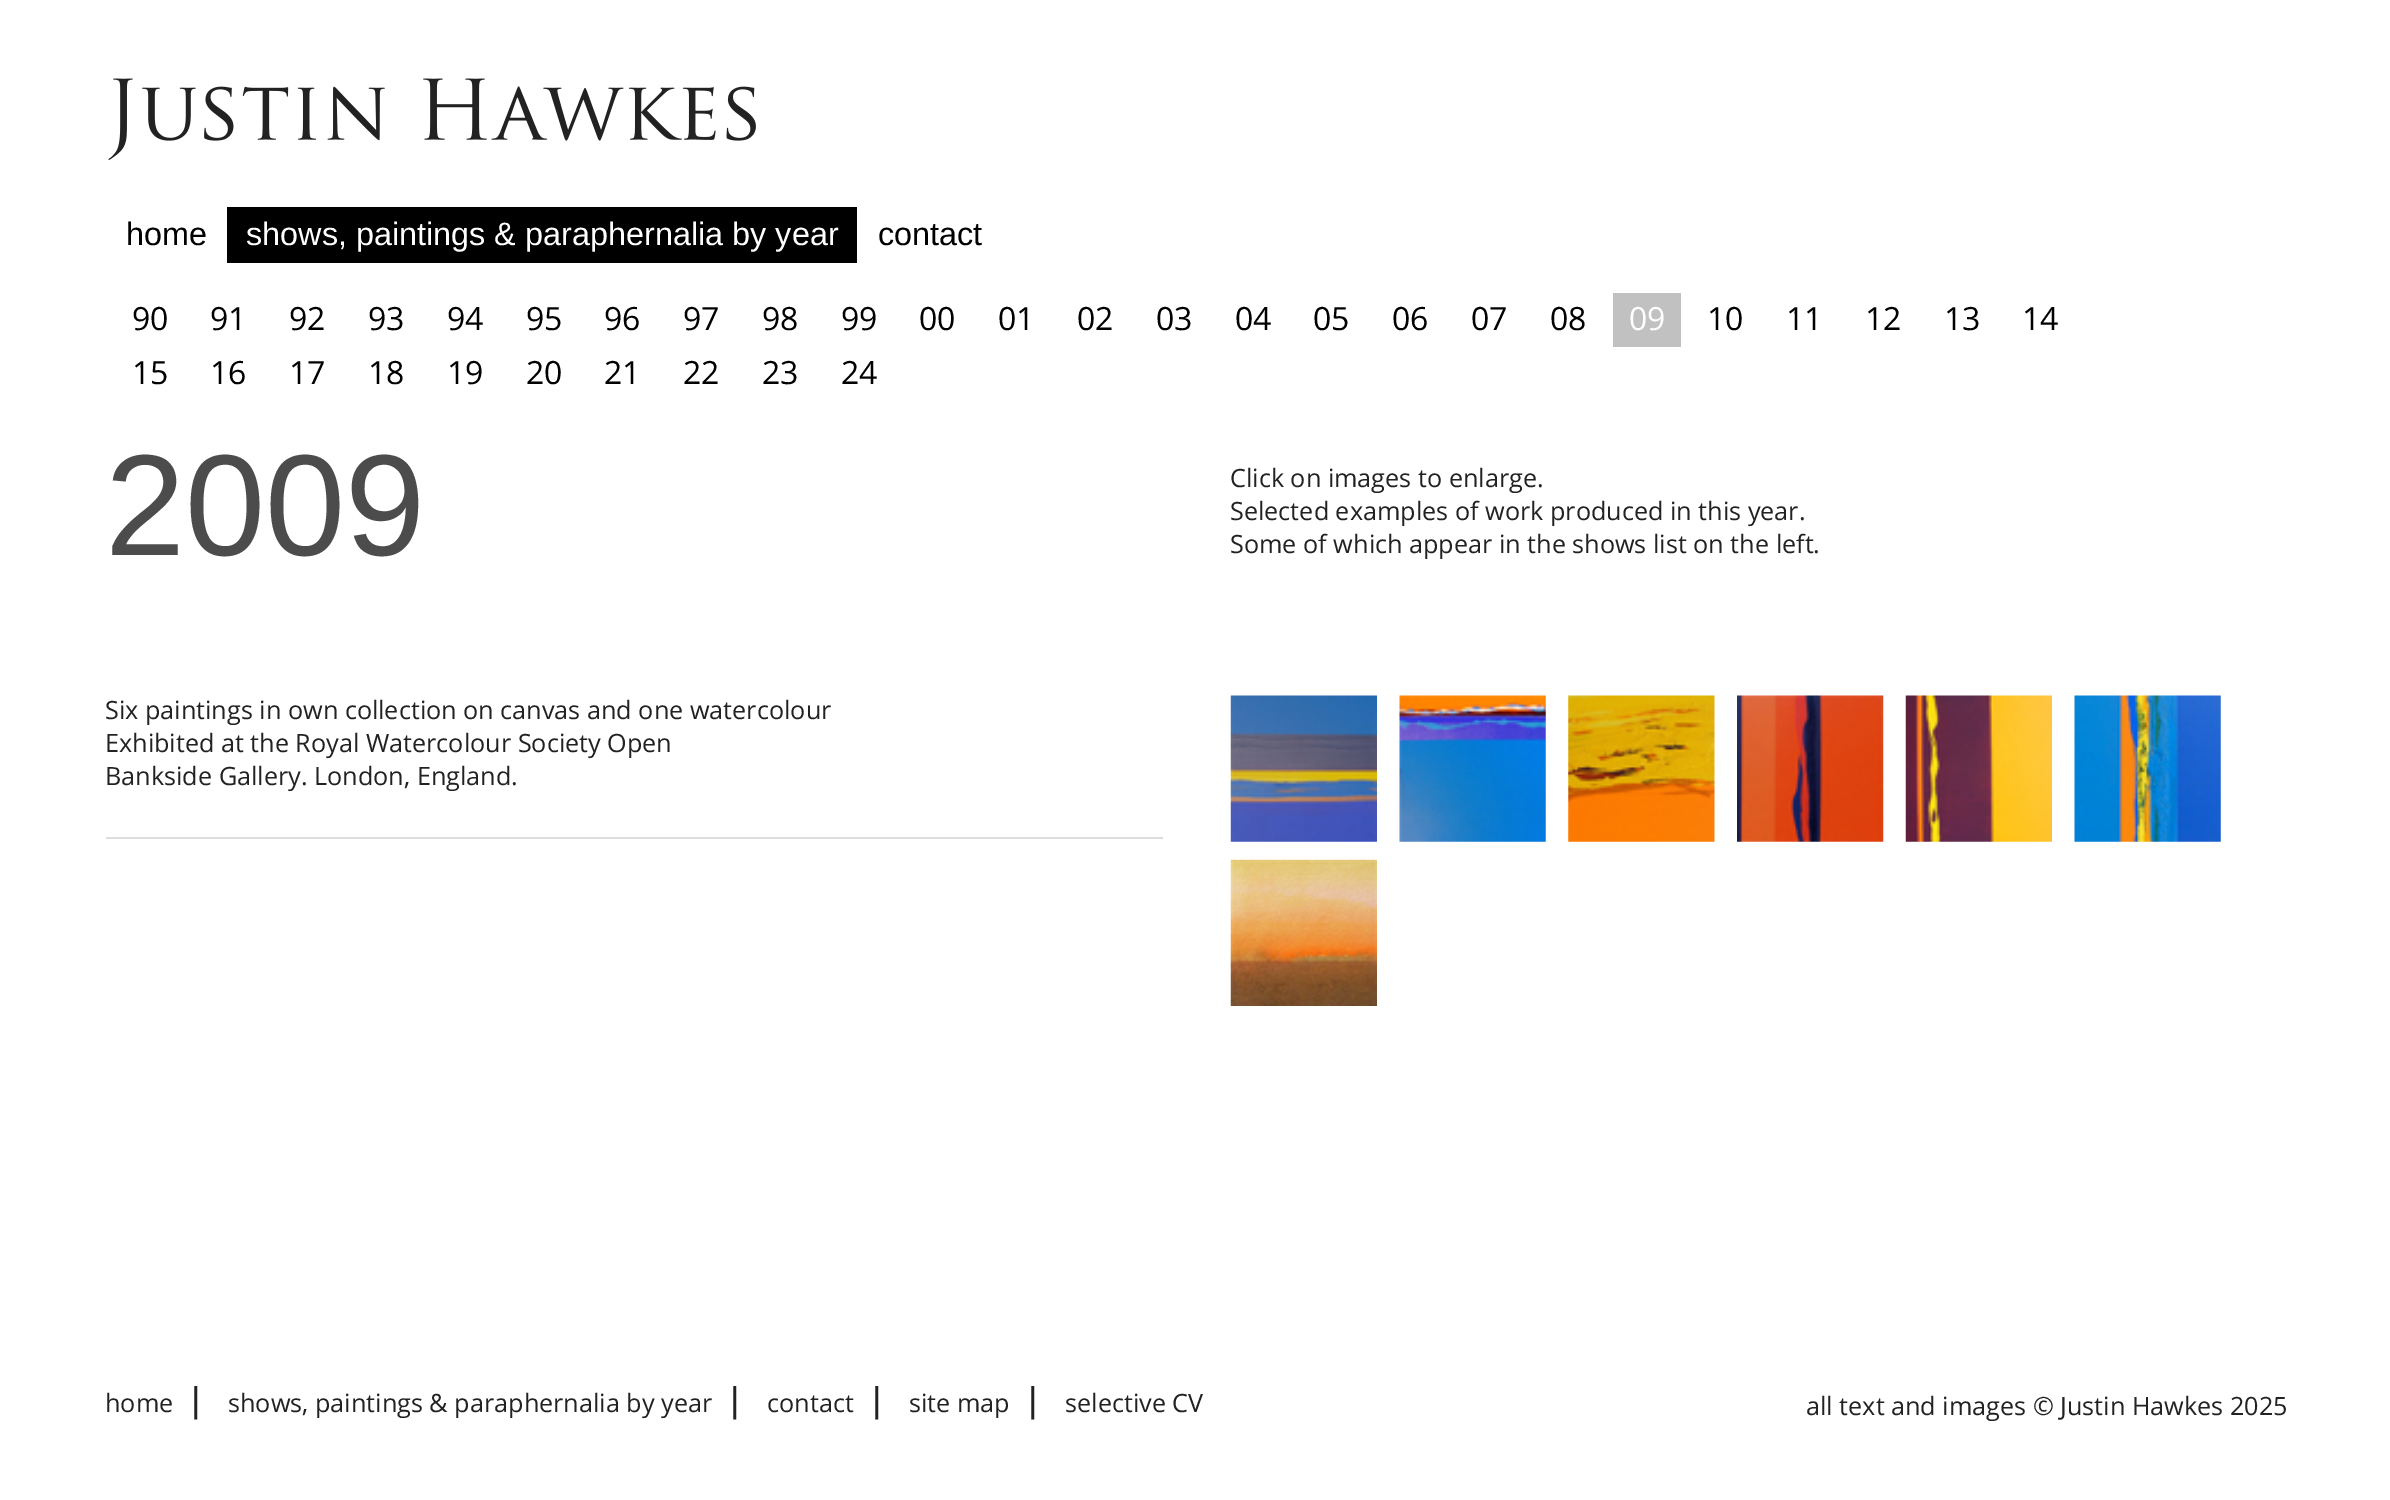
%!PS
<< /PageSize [2390 1500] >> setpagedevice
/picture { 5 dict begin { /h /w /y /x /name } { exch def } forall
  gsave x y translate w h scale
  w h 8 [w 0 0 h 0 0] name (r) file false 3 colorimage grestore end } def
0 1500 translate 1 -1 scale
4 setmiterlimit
1 setgray
0 0 2390 1500 rectfill
(img1.rgb) 108 78 648 82 picture
/LiberationSans-Regular [32.4 0 0 -32.4 0 0] selectfont
0 setgray
126 245 moveto (home) show
227 207 630 56 rectfill
1 setgray
246 245 moveto (shows, paintings & paraphernalia by year) show
0 setgray
878 245 moveto (contact) show
/OpenSans-Regular [32 0 0 -32 0 0] selectfont
132 330 moveto (90) show
210 330 moveto (91) show
289 330 moveto (92) show
368 330 moveto (93) show
447 330 moveto (94) show
526 330 moveto (95) show
604 330 moveto (96) show
683 330 moveto (97) show
762 330 moveto (98) show
841 330 moveto (99) show
919 330 moveto (00) show
998 330 moveto (01) show
1077 330 moveto (02) show
1156 330 moveto (03) show
1235 330 moveto (04) show
1313 330 moveto (05) show
1392 330 moveto (06) show
1471 330 moveto (07) show
1550 330 moveto (08) show
0.757 setgray
1613 293 68 54 rectfill
1 setgray
1629 330 moveto (09) show
0 setgray
1707 330 moveto (10) show
1786 330 moveto (11) show
1865 330 moveto (12) show
1944 330 moveto (13) show
2022 330 moveto (14) show
132 384 moveto (15) show
210 384 moveto (16) show
289 384 moveto (17) show
368 384 moveto (18) show
447 384 moveto (19) show
526 384 moveto (20) show
604 384 moveto (21) show
683 384 moveto (22) show
762 384 moveto (23) show
841 384 moveto (24) show
/LiberationSans-Regular [144 0 0 -144 0 0] selectfont
0.298 setgray
105 555 moveto (2009) show
/OpenSans-Regular [25.2 0 0 -25.2 0 0] selectfont
0.133 setgray
1230 487 moveto (Click on images to enlarge.) show
1230 520 moveto (Selected examples of work produced in this year.) show
1230 553 moveto (Some of which appear in the shows list on the left.) show
105 719 moveto (Six paintings in own collection on canvas and one watercolour) show
105 752 moveto (Exhibited at the Royal Watercolour Society Open) show
105 785 moveto (Bankside Gallery. London, England.) show
0.867 setgray
106 837 1057 2 rectfill
(img2.rgb) 1230 695 147 147 picture
(img3.rgb) 1399 695 147 147 picture
(img4.rgb) 1568 695 147 147 picture
(img5.rgb) 1737 695 147 147 picture
(img6.rgb) 1905 695 147 147 picture
(img7.rgb) 2074 695 147 147 picture
(img8.rgb) 1230 859 147 147 picture
0.133 setgray
105 1412 moveto (home) show
/LiberationSans-Regular [36 0 0 -36 0 0] selectfont
191 1412 moveto (|) show
/OpenSans-Regular [25.2 0 0 -25.2 0 0] selectfont
228 1412 moveto (shows, paintings & paraphernalia by year) show
/LiberationSans-Regular [36 0 0 -36 0 0] selectfont
730 1412 moveto (|) show
/OpenSans-Regular [25.2 0 0 -25.2 0 0] selectfont
767 1412 moveto (contact) show
/LiberationSans-Regular [36 0 0 -36 0 0] selectfont
872 1412 moveto (|) show
/OpenSans-Regular [25.2 0 0 -25.2 0 0] selectfont
909 1412 moveto (site map) show
/LiberationSans-Regular [36 0 0 -36 0 0] selectfont
1028 1412 moveto (|) show
/OpenSans-Regular [25.2 0 0 -25.2 0 0] selectfont
1065 1412 moveto (selective CV) show
1806 1415 moveto (all text and images © Justin Hawkes 2025) show
showpage
